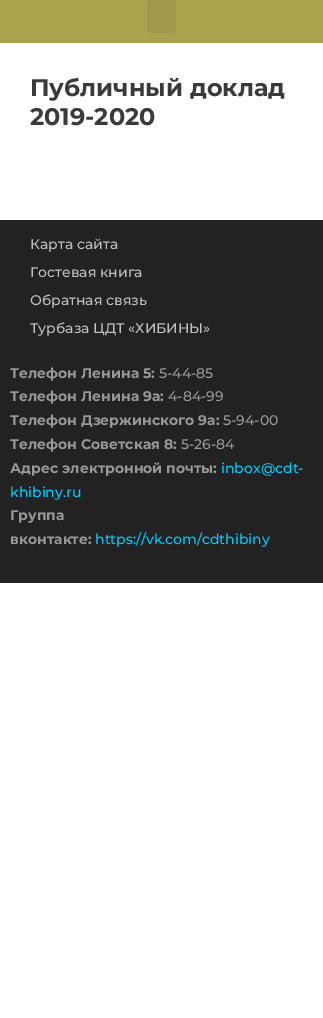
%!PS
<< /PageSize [323 1018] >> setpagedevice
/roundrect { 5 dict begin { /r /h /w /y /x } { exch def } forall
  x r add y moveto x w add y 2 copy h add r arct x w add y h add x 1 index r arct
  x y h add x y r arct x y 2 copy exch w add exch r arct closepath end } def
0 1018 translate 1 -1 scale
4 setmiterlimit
1 setgray
0 0 323 1018 rectfill
0.671 0.635 0.306 setrgbcolor
0 0 323 43 rectfill
0.635 0.604 0.29 setrgbcolor
147 0 29 33 3 roundrect fill
/Montserrat-Bold [24 0 0 -24 0 0] selectfont
0.227 setgray
30 96 moveto (Публичный доклад) show
30 125 moveto (2019-2020) show
0.133 setgray
0 220 323 363 rectfill
/Montserrat-Medium [14 0 0 -14 0 0] selectfont
0.749 setgray
30 249 moveto (Карта сайта) show
30 277 moveto (Гостевая книга) show
30 305 moveto (Обратная связь) show
30 333 moveto (Турбаза ЦДТ «ХИБИНЫ») show
/Montserrat-Bold [14 0 0 -14 0 0] selectfont
0.6 setgray
10 378 moveto (Телефон Ленина 5:) show
/Montserrat-Medium [14 0 0 -14 0 0] selectfont
159 378 moveto (5-44-85) show
/Montserrat-Bold [14 0 0 -14 0 0] selectfont
10 401 moveto (Телефон Ленина 9а:) show
/Montserrat-Medium [14 0 0 -14 0 0] selectfont
168 401 moveto (4-84-99) show
/Montserrat-Bold [14 0 0 -14 0 0] selectfont
10 425 moveto (Телефон Дзержинского 9а:) show
/Montserrat-Medium [14 0 0 -14 0 0] selectfont
223 425 moveto (5-94-00) show
/Montserrat-Bold [14 0 0 -14 0 0] selectfont
10 449 moveto (Телефон Советская 8:) show
/Montserrat-Medium [14 0 0 -14 0 0] selectfont
181 449 moveto (5-26-84) show
/Montserrat-Bold [14 0 0 -14 0 0] selectfont
10 473 moveto (Адрес электронной почты:) show
/Montserrat-Medium [14 0 0 -14 0 0] selectfont
0 0.8 1 setrgbcolor
221 473 moveto (inbox@cdt-) show
10 497 moveto (khibiny.ru) show
/Montserrat-Bold [14 0 0 -14 0 0] selectfont
0.6 setgray
10 520 moveto (Группа) show
10 544 moveto (вконтакте:) show
/Montserrat-Medium [14 0 0 -14 0 0] selectfont
0 0.8 1 setrgbcolor
95 544 moveto (https://vk.com/cdthibiny) show
showpage
